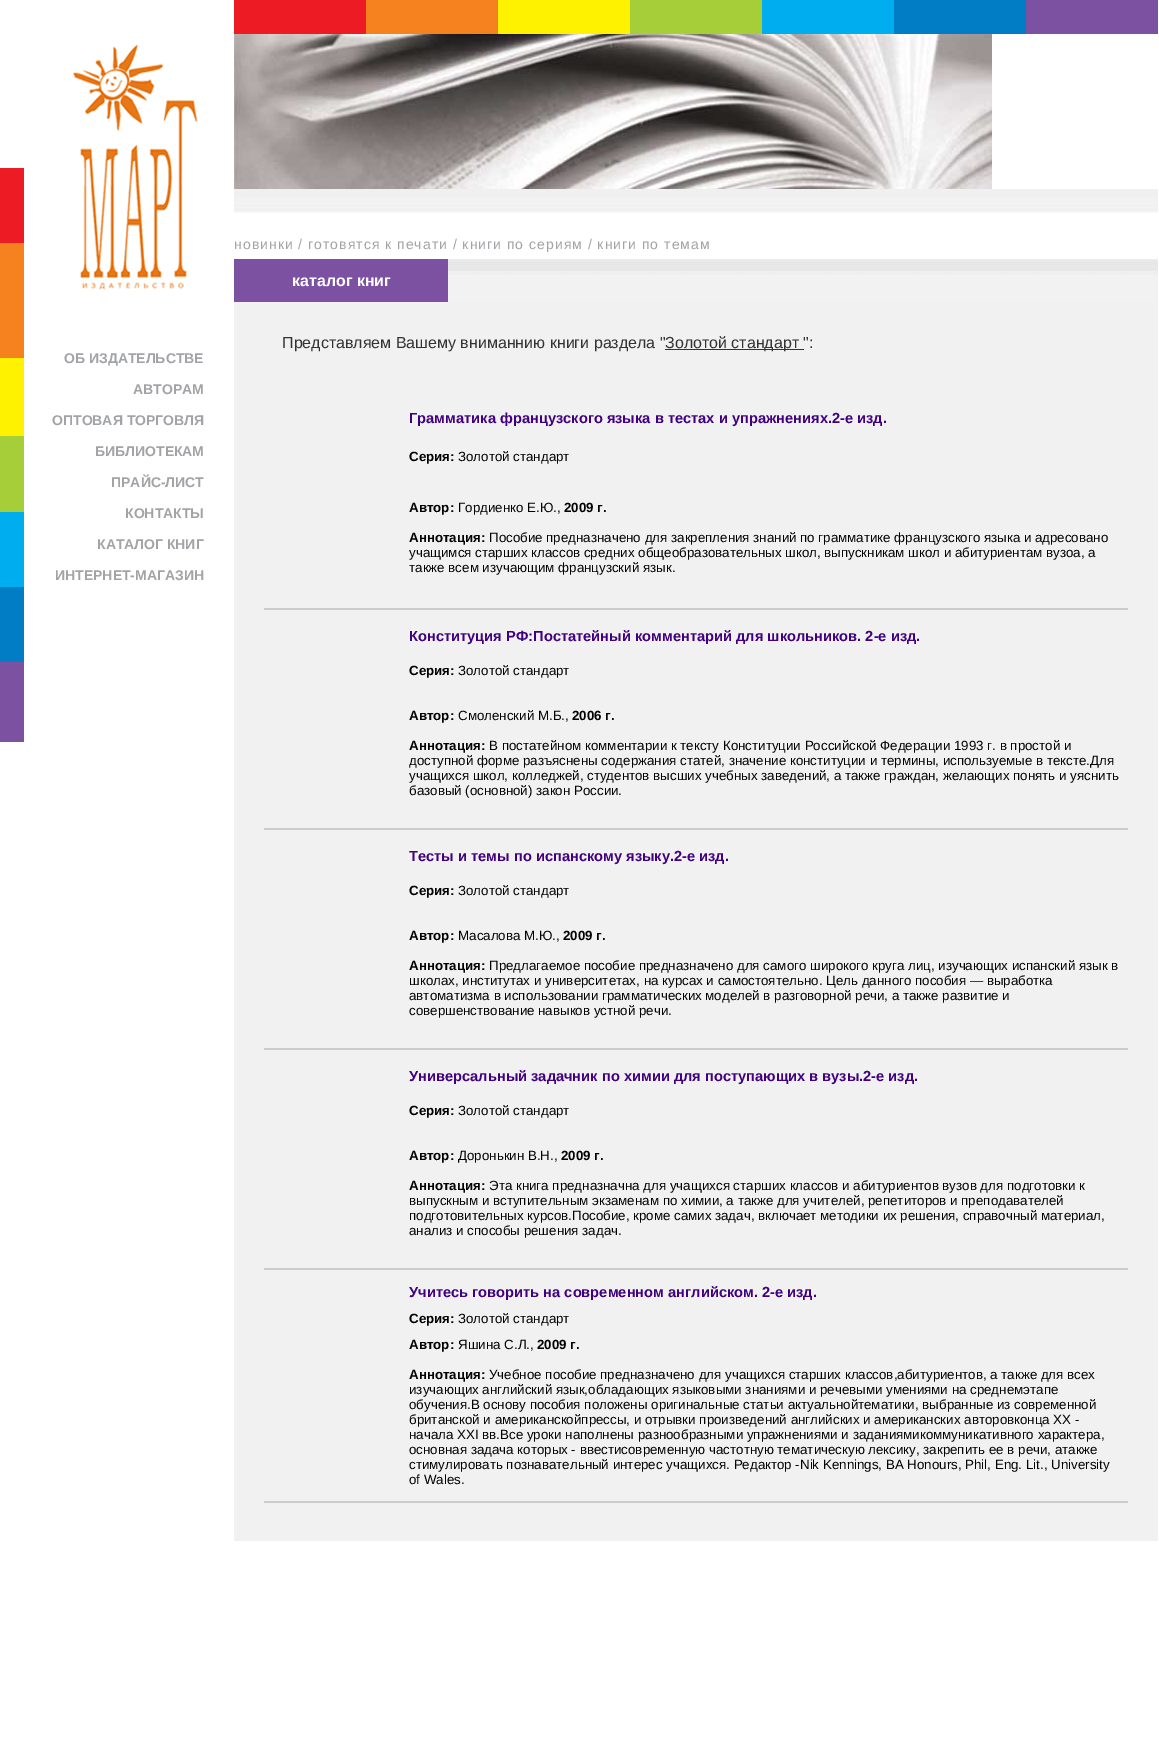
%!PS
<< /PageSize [1159 1743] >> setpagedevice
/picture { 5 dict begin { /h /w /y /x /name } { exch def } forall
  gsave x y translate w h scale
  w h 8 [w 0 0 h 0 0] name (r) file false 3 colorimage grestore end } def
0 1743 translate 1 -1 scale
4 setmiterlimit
1 setgray
0 0 1159 1743 rectfill
0.929 0.11 0.141 setrgbcolor
234 0 132 34 rectfill
0.961 0.51 0.122 setrgbcolor
366 0 132 34 rectfill
1 0.949 0 setrgbcolor
498 0 132 34 rectfill
0.651 0.808 0.224 setrgbcolor
630 0 132 34 rectfill
0 0.678 0.937 setrgbcolor
762 0 132 34 rectfill
0 0.49 0.773 setrgbcolor
894 0 132 34 rectfill
0.486 0.318 0.631 setrgbcolor
1026 0 132 34 rectfill
0.929 0.11 0.141 setrgbcolor
0 168 24 75 rectfill
(img1.rgb) 73 44 125 246 picture
(img2.rgb) 234 34 758 155 picture
(img3.rgb) 234 189 924 24 picture
0.961 0.51 0.122 setrgbcolor
0 243 24 115 rectfill
/LiberationSans-Regular [14 0 0 -14 0 0] selectfont
0.631 0.639 0.651 setrgbcolor
234 249 moveto 1 0 (новинки / готовятся к печати / книги по сериям / книги по темам) ashow
0.486 0.318 0.631 setrgbcolor
234 259 214 43 rectfill
/LiberationSans-Bold [16 0 0 -16 0 0] selectfont
1 setgray
292 286 moveto (каталог книг) show
(img4.rgb) 448 259 710 43 picture
1 0.949 0 setrgbcolor
0 358 24 78 rectfill
/LiberationSans-Bold [14 0 0 -14 0 0] selectfont
0.631 0.639 0.651 setrgbcolor
64 363 moveto (ОБ ИЗДАТЕЛЬСТВЕ) show
133 394 moveto (АВТОРАМ) show
52 425 moveto (ОПТОВАЯ ТОРГОВЛЯ) show
95 456 moveto (БИБЛИОТЕКАМ) show
111 487 moveto (ПРАЙС-ЛИСТ) show
125 518 moveto (КОНТАКТЫ) show
97 549 moveto (КАТАЛОГ КНИГ) show
55 580 moveto (ИНТЕРНЕТ-МАГАЗИН) show
0.945 0.945 0.949 setrgbcolor
234 302 924 1239 rectfill
/LiberationSans-Regular [16 0 0 -16 0 0] selectfont
0.2 setgray
282 348 moveto (Представляем Вашему вниманнию книги раздела ") show
665 349 139 1 rectfill
665 348 moveto (Золотой стандарт ":) show
/LiberationSans-Bold [14.65 0 0 -14.65 0 0] selectfont
0.251 0 0.502 setrgbcolor
409 423 moveto (Грамматика французского языка в тестах и упражнениях.2-е изд.) show
/LiberationSans-Bold [13.33 0 0 -13.33 0 0] selectfont
0 setgray
409 461 moveto (Серия:) show
/LiberationSans-Regular [13.33 0 0 -13.33 0 0] selectfont
458 461 moveto (Золотой стандарт) show
/LiberationSans-Bold [13.33 0 0 -13.33 0 0] selectfont
409 512 moveto (Автор:) show
/LiberationSans-Regular [13.33 0 0 -13.33 0 0] selectfont
458 512 moveto (Гордиенко Е.Ю.,) show
/LiberationSans-Bold [13.33 0 0 -13.33 0 0] selectfont
564 512 moveto (2009 г.) show
409 542 moveto (Аннотация:) show
/LiberationSans-Regular [13.33 0 0 -13.33 0 0] selectfont
489 542 moveto (Пособие предназначено для закрепления знаний по грамматике французского языка и адресовано) show
409 557 moveto (учащимся старших классов средних общеобразовательных школ, выпускникам школ и абитуриентам вузоа, а) show
409 572 moveto (также всем изучающим французский язык.) show
0.8 setgray
264 608 864 2 rectfill
/LiberationSans-Bold [14.65 0 0 -14.65 0 0] selectfont
0.251 0 0.502 setrgbcolor
409 641 moveto (Конституция РФ:Постатейный комментарий для школьников. 2-е изд.) show
/LiberationSans-Bold [13.33 0 0 -13.33 0 0] selectfont
0 setgray
409 675 moveto (Серия:) show
/LiberationSans-Regular [13.33 0 0 -13.33 0 0] selectfont
458 675 moveto (Золотой стандарт) show
/LiberationSans-Bold [13.33 0 0 -13.33 0 0] selectfont
409 720 moveto (Автор:) show
/LiberationSans-Regular [13.33 0 0 -13.33 0 0] selectfont
458 720 moveto (Смоленский М.Б.,) show
/LiberationSans-Bold [13.33 0 0 -13.33 0 0] selectfont
572 720 moveto (2006 г.) show
409 750 moveto (Аннотация:) show
/LiberationSans-Regular [13.33 0 0 -13.33 0 0] selectfont
489 750 moveto (В постатейном комментарии к тексту Конституции Российской Федерации 1993 г. в простой и) show
409 765 moveto (доступной форме разъяснены содержания статей, значение конституции и термины, используемые в тексте.Для) show
409 780 moveto (учащихся школ, колледжей, студентов высших учебных заведений, а также граждан, желающих понять и уяснить) show
409 795 moveto (базовый \(основной\) закон России.) show
0.8 setgray
264 828 864 2 rectfill
/LiberationSans-Bold [14.65 0 0 -14.65 0 0] selectfont
0.251 0 0.502 setrgbcolor
409 861 moveto (Тесты и темы по испанскому языку.2-е изд.) show
/LiberationSans-Bold [13.33 0 0 -13.33 0 0] selectfont
0 setgray
409 895 moveto (Серия:) show
/LiberationSans-Regular [13.33 0 0 -13.33 0 0] selectfont
458 895 moveto (Золотой стандарт) show
/LiberationSans-Bold [13.33 0 0 -13.33 0 0] selectfont
409 940 moveto (Автор:) show
/LiberationSans-Regular [13.33 0 0 -13.33 0 0] selectfont
458 940 moveto (Масалова М.Ю.,) show
/LiberationSans-Bold [13.33 0 0 -13.33 0 0] selectfont
563 940 moveto (2009 г.) show
409 970 moveto (Аннотация:) show
/LiberationSans-Regular [13.33 0 0 -13.33 0 0] selectfont
489 970 moveto (Предлагаемое пособие предназначено для самого широкого круга лиц, изучающих испанский язык в) show
409 985 moveto (школах, институтах и университетах, на курсах и самостоятельно. Цель данного пособия — выработка) show
409 1000 moveto (автоматизма в использовании грамматических моделей в разговорной речи, а также развитие и) show
409 1015 moveto (совершенствование навыков устной речи.) show
0.8 setgray
264 1048 864 2 rectfill
/LiberationSans-Bold [14.65 0 0 -14.65 0 0] selectfont
0.251 0 0.502 setrgbcolor
409 1081 moveto (Универсальный задачник по химии для поступающих в вузы.2-е изд.) show
/LiberationSans-Bold [13.33 0 0 -13.33 0 0] selectfont
0 setgray
409 1115 moveto (Серия:) show
/LiberationSans-Regular [13.33 0 0 -13.33 0 0] selectfont
458 1115 moveto (Золотой стандарт) show
/LiberationSans-Bold [13.33 0 0 -13.33 0 0] selectfont
409 1160 moveto (Автор:) show
/LiberationSans-Regular [13.33 0 0 -13.33 0 0] selectfont
458 1160 moveto (Доронькин В.Н.,) show
/LiberationSans-Bold [13.33 0 0 -13.33 0 0] selectfont
561 1160 moveto (2009 г.) show
409 1190 moveto (Аннотация:) show
/LiberationSans-Regular [13.33 0 0 -13.33 0 0] selectfont
489 1190 moveto (Эта книга предназначна для учащихся старших классов и абитуриентов вузов для подготовки к) show
409 1205 moveto (выпускным и вступительным экзаменам по химии, а также для учителей, репетиторов и преподавателей) show
409 1220 moveto (подготовительных курсов.Пособие, кроме самих задач, включает методики их решения, справочный материал,) show
409 1235 moveto (анализ и способы решения задач.) show
0.8 setgray
264 1268 864 2 rectfill
/LiberationSans-Bold [14.65 0 0 -14.65 0 0] selectfont
0.251 0 0.502 setrgbcolor
409 1297 moveto (Учитесь говорить на современном английском. 2-е изд.) show
/LiberationSans-Bold [13.33 0 0 -13.33 0 0] selectfont
0 setgray
409 1323 moveto (Серия:) show
/LiberationSans-Regular [13.33 0 0 -13.33 0 0] selectfont
458 1323 moveto (Золотой стандарт) show
/LiberationSans-Bold [13.33 0 0 -13.33 0 0] selectfont
409 1349 moveto (Автор:) show
/LiberationSans-Regular [13.33 0 0 -13.33 0 0] selectfont
458 1349 moveto (Яшина С.Л.,) show
/LiberationSans-Bold [13.33 0 0 -13.33 0 0] selectfont
537 1349 moveto (2009 г.) show
409 1379 moveto (Аннотация:) show
/LiberationSans-Regular [13.33 0 0 -13.33 0 0] selectfont
489 1379 moveto (Учебное пособие предназначено для учащихся старших классов,абитуриентов, а также для всех) show
409 1394 moveto (изучающих английский язык,обладающих языковыми знаниями и речевыми умениями на среднемэтапе) show
409 1409 moveto (обучения.В основу пособия положены оригинальные статьи актуальнойтематики, выбранные из современной) show
409 1424 moveto (британской и американскойпрессы, и отрывки произведений английских и американских авторовконца XX -) show
409 1439 moveto (начала XXI вв.Все уроки наполнены разнообразными упражнениями и заданиямикоммуникативного характера,) show
409 1454 moveto (основная задача которых - ввестисовременную частотную тематическую лексику, закрепить ее в речи, атакже) show
409 1469 moveto (стимулировать познавательный интерес учащихся. Редактор -Nik Kennings, BA Honours, Phil, Eng. Lit., University) show
409 1484 moveto (of Wales.) show
0.8 setgray
264 1501 864 2 rectfill
0.651 0.808 0.224 setrgbcolor
0 436 24 76 rectfill
0 0.678 0.937 setrgbcolor
0 512 24 75 rectfill
0 0.49 0.773 setrgbcolor
0 587 24 75 rectfill
0.486 0.318 0.631 setrgbcolor
0 662 24 80 rectfill
showpage
